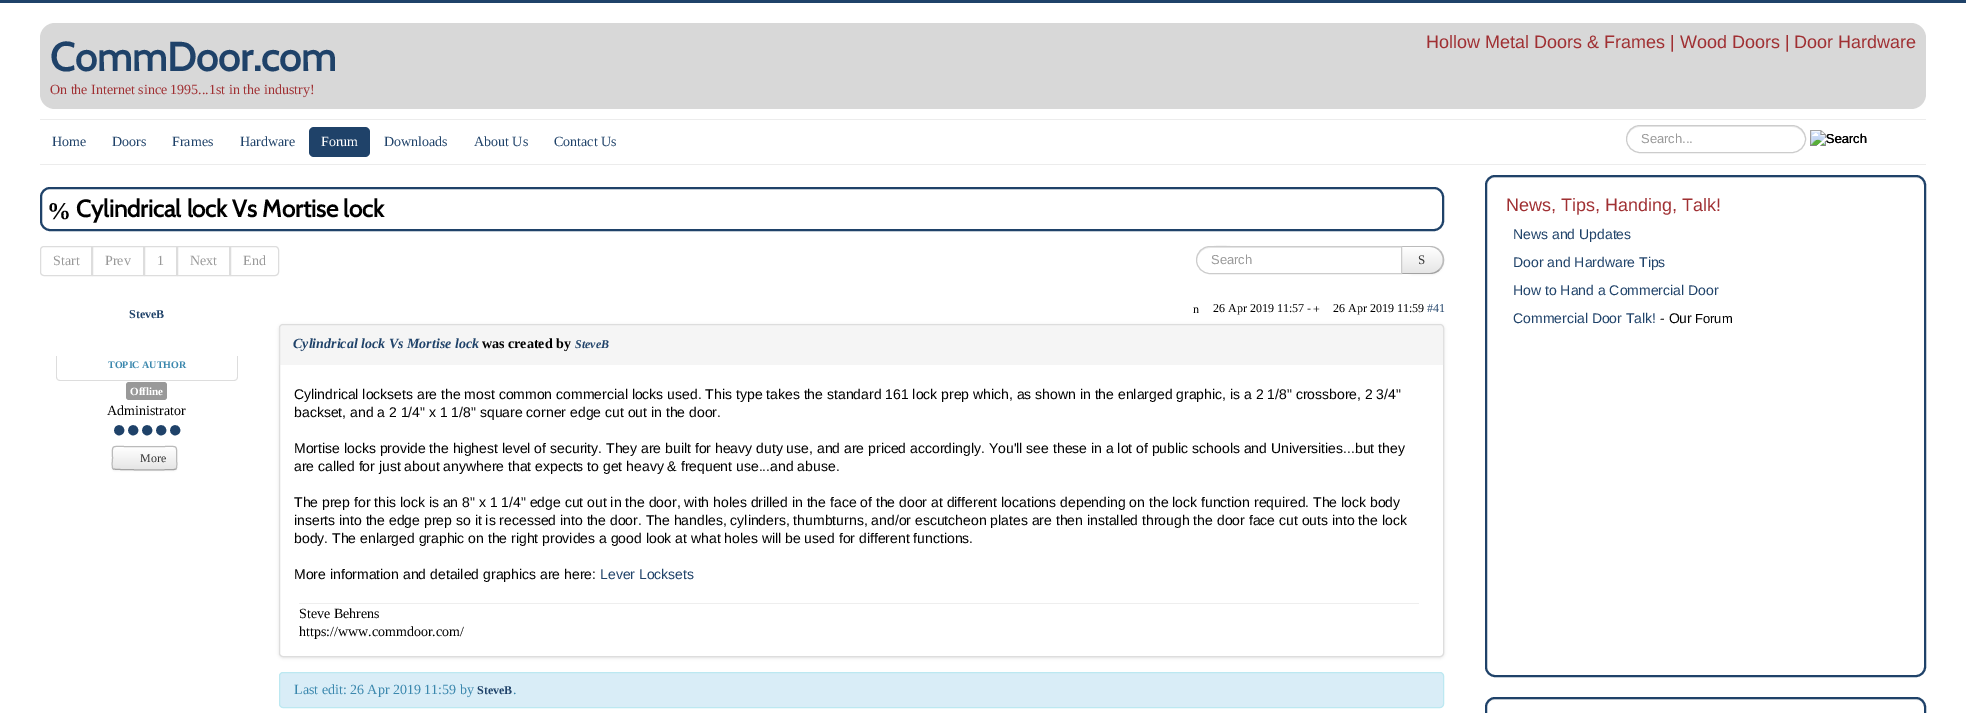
%!PS
<< /PageSize [1966 713] /PageUsesTransparency true >> setpagedevice
/alpha { dup .setfillconstantalpha .setstrokeconstantalpha } def
/roundrect { 5 dict begin { /r /h /w /y /x } { exch def } forall
  x r add y moveto x w add y 2 copy h add r arct x w add y h add x 1 index r arct
  x y h add x y r arct x y 2 copy exch w add exch r arct closepath end } def
/shadow { 12 dict begin { /a /b /q /h /w /y /x } { exch def } forall gsave /was 0 def
  9 -2 -9 { dup b mul 4 div /e exch def 1 sub .425 mul 2.718 exch exp 1 add a .99 .min exch div /now exch def
    1 1 now sub 1 was sub div sub alpha /was now def
    w h .min e 2 mul add 0 gt { x e sub y e sub w e 2 mul add h e 2 mul add
      q e add b .6 mul add w h .min 2 div e add .min 0 .max roundrect fill } if } for grestore end } def
/picture { 5 dict begin { /h /w /y /x /name } { exch def } forall
  gsave x y translate w h scale
  w h 8 [w 0 0 h 0 0] name (r) file false 3 colorimage grestore end } def
0 .pushpdf14devicefilter
0 713 translate 1 -1 scale
4 setmiterlimit
1 setgray
0 0 1966 713 rectfill
0.122 0.259 0.412 setrgbcolor
0 0 1966 3 rectfill
0.847 setgray
40 23 1886 86 15 roundrect fill
/Cabin-Bold [40 0 0 -40 0 0] selectfont
0.122 0.259 0.412 setrgbcolor
50 71 moveto (CommDoor.com) show
/LiberationSerif-Regular [14 0 0 -14 0 0] selectfont
0.627 0.188 0.2 setrgbcolor
50 94 moveto (On the Internet since 1995...1st in the industry!) show
/LiberationSans-Regular [18 0 0 -18 0 0] selectfont
1426 48 moveto (Hollow Metal Doors & Frames | Wood Doors | Door Hardware) show
0.925 setgray
40 119 1886 1 rectfill
40 164 1886 1 rectfill
/LiberationSerif-Regular [14 0 0 -14 0 0] selectfont
0.122 0.259 0.412 setrgbcolor
52 146 moveto (Home) show
112 146 moveto (Doors) show
172 146 moveto (Frames) show
240 146 moveto (Hardware) show
309 127 61 30 5 roundrect fill
1 setgray
321 146 moveto (Forum) show
0.122 0.259 0.412 setrgbcolor
384 146 moveto (Downloads) show
474 146 moveto (About Us) show
554 146 moveto (Contact Us) show
0.925 setgray
newpath 1640 127 moveto 1792 127 lineto 1799 127 1805 133 1805 140 curveto 1806 120 1776 126 1767 126 curveto 1665 126 lineto 1656 126 1626 120 1627 140 curveto 1627 133 1633 127 1640 127 curveto closepath fill
0.8 setgray
1626.5 125.5 179 27 13.5 roundrect stroke
/LiberationSans-Regular [13 0 0 -13 0 0] selectfont
0.6 setgray
1641 143 moveto (Search...) show
(img1.rgb) 1810 130 56 16 picture
0 setgray
1826 143 moveto (Search) show
0.122 0.259 0.412 setrgbcolor
2 setlinewidth
41 188 1402 42 9 roundrect stroke
/LiberationSerif-Bold [24 0 0 -24 0 0] selectfont
0 setgray
47 219 moveto (%) show
/Cabin-Bold [24 0 0 -24 0 0] selectfont
76 217 moveto (Cylindrical lock Vs Mortise lock) show
0.867 setgray
1 setlinewidth
newpath 44 246.5 moveto 91.5 246.5 lineto 91.5 275.5 lineto 44 275.5 lineto 42 275.5 40.5 274 40.5 272 curveto 40.5 250 lineto 40.5 248 42 246.5 44 246.5 curveto closepath stroke
/LiberationSerif-Regular [14 0 0 -14 0 0] selectfont
0.6 setgray
53 265 moveto (Start) show
0.867 setgray
92.5 246.5 51 29 rectstroke
0.6 setgray
105 265 moveto (Prev) show
0.867 setgray
144.5 246.5 32 29 rectstroke
0.6 setgray
157 265 moveto (1) show
0.867 setgray
177.5 246.5 52 29 rectstroke
0.6 setgray
190 265 moveto (Next) show
0.867 setgray
newpath 230.5 246.5 moveto 275 246.5 lineto 277 246.5 278.5 248 278.5 250 curveto 278.5 272 lineto 278.5 274 277 275.5 275 275.5 curveto 230.5 275.5 lineto closepath stroke
0.6 setgray
243 265 moveto (End) show
0 setgray
1401 247 43 28 14 1 0.05 shadow
gsave
newpath 1401 246 moveto 1430 246 lineto 1437.5 246 1444 252.5 1444 260 curveto 1444 267.5 1437.5 274 1430 274 curveto 1401 274 lineto closepath clip newpath
gsave newpath 1402 247 moveto 1444 247 lineto 1444 273 lineto 1402 273 lineto closepath clip newpath
<< /ShadingType 2 /ColorSpace /DeviceRGB /Coords [1423 247 1423 273] /Extend [true true] /Function << /FunctionType 2 /Domain [0 1] /C0 [1 1 1] /C1 [0.902 0.902 0.902] /N 1 >> >> shfill grestore
grestore
0.733 setgray
newpath 1401 246 moveto 1402 247 lineto 1430 247 lineto 1433.5 247 1437 248.5 1439 251 curveto 1440 250 lineto 1437.5 247.5 1434 246 1430 246 curveto closepath fill
newpath 1440 250 moveto 1445.5 255.5 1445.5 264.5 1440 270 curveto 1439 269 lineto 1444 264 1444 256 1439 251 curveto closepath fill
0.635 setgray
newpath 1430 274 moveto 1434 274 1437.5 272.5 1440 270 curveto 1439 269 lineto 1437 271.5 1433.5 273 1430 273 curveto 1402 273 lineto 1401 274 lineto closepath fill
1 setgray
newpath 1210 246 moveto 1402 246 lineto 1402 274 lineto 1210 274 lineto 1202.5 274 1196 267.5 1196 260 curveto 1196 252.5 1202.5 246 1210 246 curveto closepath fill
0.925 setgray
newpath 1210 248 moveto 1401 248 lineto 1401 247 lineto 1242 247 lineto 1234 247 1196 239 1197 261 curveto 1197 254 1203 248 1210 248 curveto closepath fill
0.8 setgray
newpath 1210 246.5 moveto 1401.5 246.5 lineto 1401.5 273.5 lineto 1210 273.5 lineto 1202.5 273.5 1196.5 267.5 1196.5 260 curveto 1196.5 252.5 1202.5 246.5 1210 246.5 curveto closepath stroke
/LiberationSans-Regular [13 0 0 -13 0 0] selectfont
0.6 setgray
1211 264 moveto (Search) show
/LiberationSerif-Regular [13 0 0 -13 0 0] selectfont
0.2 setgray
1418 264 moveto (S) show
/LiberationSerif-Bold [12 0 0 -12 0 0] selectfont
0.122 0.259 0.412 setrgbcolor
129 318 moveto (SteveB) show
0.867 setgray
newpath 56 356 moveto 238 356 lineto 238 377 lineto 238 379 236 381 234 381 curveto 60 381 lineto 58 381 56 379 56 377 curveto closepath 57 356 moveto 237 356 lineto 237 377 lineto 237 379 236 380 234 380 curveto 60 380 lineto 58 380 57 379 57 377 curveto closepath eofill
/LiberationSerif-Bold [10 0 0 -10 0 0] selectfont
0.227 0.529 0.678 setrgbcolor
108 368 moveto (TOPIC AUTHOR) show
0.6 setgray
126 382 41 18 3 roundrect fill
/LiberationSerif-Bold [11 0 0 -11 0 0] selectfont
1 setgray
130 395 moveto (Offline) show
/LiberationSerif-Regular [14 0 0 -14 0 0] selectfont
0 setgray
107 415 moveto (Administrator) show
/LiberationSerif-Bold [24 0 0 -24 0 0] selectfont
0.122 0.259 0.412 setrgbcolor
112 437 moveto (●) show
126 437 moveto (●) show
140 437 moveto (●) show
154 437 moveto (●) show
168 437 moveto (●) show
0 setgray
112 447 65 24 3 1 0.05 shadow
0.961 setgray
112 446 65 24 3 roundrect fill
gsave
112 446 65 24 3 roundrect clip newpath
gsave newpath 112 447 moveto 177 447 lineto 177 469 lineto 112 469 lineto closepath clip newpath
<< /ShadingType 2 /ColorSpace /DeviceRGB /Coords [145 447 145 469] /Extend [true true] /Function << /FunctionType 2 /Domain [0 1] /C0 [1 1 1] /C1 [0.902 0.902 0.902] /N 1 >> >> shfill grestore
grestore
0.635 setgray
newpath 176 469 moveto 174 469.5 lineto 169 470 114.5 470 113.5 469 curveto 113 469 lineto stroke
0.733 setgray
newpath 113 469 moveto 111.5 467 112.5 460 112.5 458 curveto 112.5 444.5 110.5 446.5 125 446.5 curveto 164 446.5 lineto 178.5 446.5 176.5 444.5 176.5 458 curveto 176.5 460 177.5 467 176 469 curveto stroke
/LiberationSerif-Regular [12 0 0 -12 0 0] selectfont
0.2 setgray
140 462 moveto (More) show
0 setgray
1193 313 moveto (n) show
1213 312 moveto (26 Apr 2019 11:57 -) show
1313 313 moveto (+) show
1333 312 moveto (26 Apr 2019 11:59) show
0.122 0.259 0.412 setrgbcolor
1427 312 moveto (#41) show
gsave
newpath 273 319 moveto 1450 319 lineto 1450 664 lineto 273 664 lineto closepath 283 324 moveto 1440 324 lineto 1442 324 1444 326 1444 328 curveto 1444 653 lineto 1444 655 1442 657 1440 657 curveto 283 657 lineto 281 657 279 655 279 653 curveto 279 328 lineto 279 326 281 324 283 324 curveto closepath eoclip newpath
0 setgray
279 325 1165 333 4 1.5 0.1 shadow
grestore
0.867 setgray
279.5 324.5 1164 332 3.5 roundrect stroke
0.4 alpha
0.898 setgray
newpath 283 325 moveto 1440 325 lineto 1442 325 1444 327 1444 329 curveto 1444 365 lineto 279 365 lineto 279 329 lineto 279 327 281 325 283 325 curveto closepath fill
/LiberationSerif-BoldItalic [14 0 0 -14 0 0] selectfont
1 alpha
0.122 0.259 0.412 setrgbcolor
293 348 moveto (Cylindrical lock Vs Mortise lock) show
/LiberationSerif-Bold [14 0 0 -14 0 0] selectfont
0 setgray
482 348 moveto (was created by) show
/LiberationSerif-BoldItalic [12 0 0 -12 0 0] selectfont
0.122 0.259 0.412 setrgbcolor
575 348 moveto (SteveB) show
/LiberationSans-Regular [14 0 0 -14 0 0] selectfont
0 setgray
294 399 moveto (Cylindrical locksets are the most common commercial locks used. This type takes the standard 161 lock prep which, as shown in the enlarged graphic, is a 2 1/8" crossbore, 2 3/4") show
294 417 moveto (backset, and a 2 1/4" x 1 1/8" square corner edge cut out in the door.) show
294 453 moveto (Mortise locks provide the highest level of security. They are built for heavy duty use, and are priced accordingly. You'll see these in a lot of public schools and Universities...but they) show
294 471 moveto (are called for just about anywhere that expects to get heavy & frequent use...and abuse.) show
294 507 moveto (The prep for this lock is an 8" x 1 1/4" edge cut out in the door, with holes drilled in the face of the door at different locations depending on the lock function required. The lock body) show
294 525 moveto (inserts into the edge prep so it is recessed into the door. The handles, cylinders, thumbturns, and/or escutcheon plates are then installed through the door face cut outs into the lock) show
294 543 moveto (body. The enlarged graphic on the right provides a good look at what holes will be used for different functions.) show
294 579 moveto (More information and detailed graphics are here:) show
0.122 0.259 0.412 setrgbcolor
600 579 moveto (Lever Locksets) show
0.933 setgray
299 603 1120 1 rectfill
/LiberationSerif-Regular [14 0 0 -14 0 0] selectfont
0 setgray
299 618 moveto (Steve Behrens) show
299 636 moveto (https://www.commdoor.com/) show
0.851 0.929 0.969 setrgbcolor
279.5 672.5 1164 35 3.5 roundrect gsave fill grestore
0.737 0.91 0.945 setrgbcolor
stroke
0.227 0.529 0.678 setrgbcolor
294 694 moveto (Last edit: 26 Apr 2019 11:59 by) show
/LiberationSerif-Bold [12 0 0 -12 0 0] selectfont
0.122 0.259 0.412 setrgbcolor
477 694 moveto (SteveB) show
/LiberationSerif-Regular [14 0 0 -14 0 0] selectfont
0.227 0.529 0.678 setrgbcolor
513 694 moveto (.) show
0.949 setgray
newpath 1495 178 moveto 1916 178 lineto 1920 178 1924 182 1924 186 curveto 1924 181 1921 177 1916 177 curveto 1495 177 lineto 1490 177 1487 181 1487 186 curveto 1487 182 1491 178 1495 178 curveto closepath fill
0.122 0.259 0.412 setrgbcolor
2 setlinewidth
1486 176 439 500 9 roundrect stroke
/LiberationSans-Regular [18 0 0 -18 0 0] selectfont
0.627 0.188 0.2 setrgbcolor
1506 211 moveto (News, Tips, Handing, Talk!) show
/LiberationSans-Regular [14 0 0 -14 0 0] selectfont
0.122 0.259 0.412 setrgbcolor
1513 239 moveto (News and Updates) show
1513 267 moveto (Door and Hardware Tips) show
1513 295 moveto (How to Hand a Commercial Door) show
1513 323 moveto (Commercial Door Talk!) show
0 setgray
1660 323 moveto (- Our) show
/LiberationSans-Regular [13 0 0 -13 0 0] selectfont
1695 323 moveto (Forum) show
0.949 setgray
newpath 1495 700 moveto 1916 700 lineto 1920 700 1924 704 1924 708 curveto 1924 703 1921 699 1916 699 curveto 1495 699 lineto 1490 699 1487 703 1487 708 curveto 1487 704 1491 700 1495 700 curveto closepath fill
0.122 0.259 0.412 setrgbcolor
1486 698 439 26 9 roundrect stroke
.poppdf14devicefilter showpage
